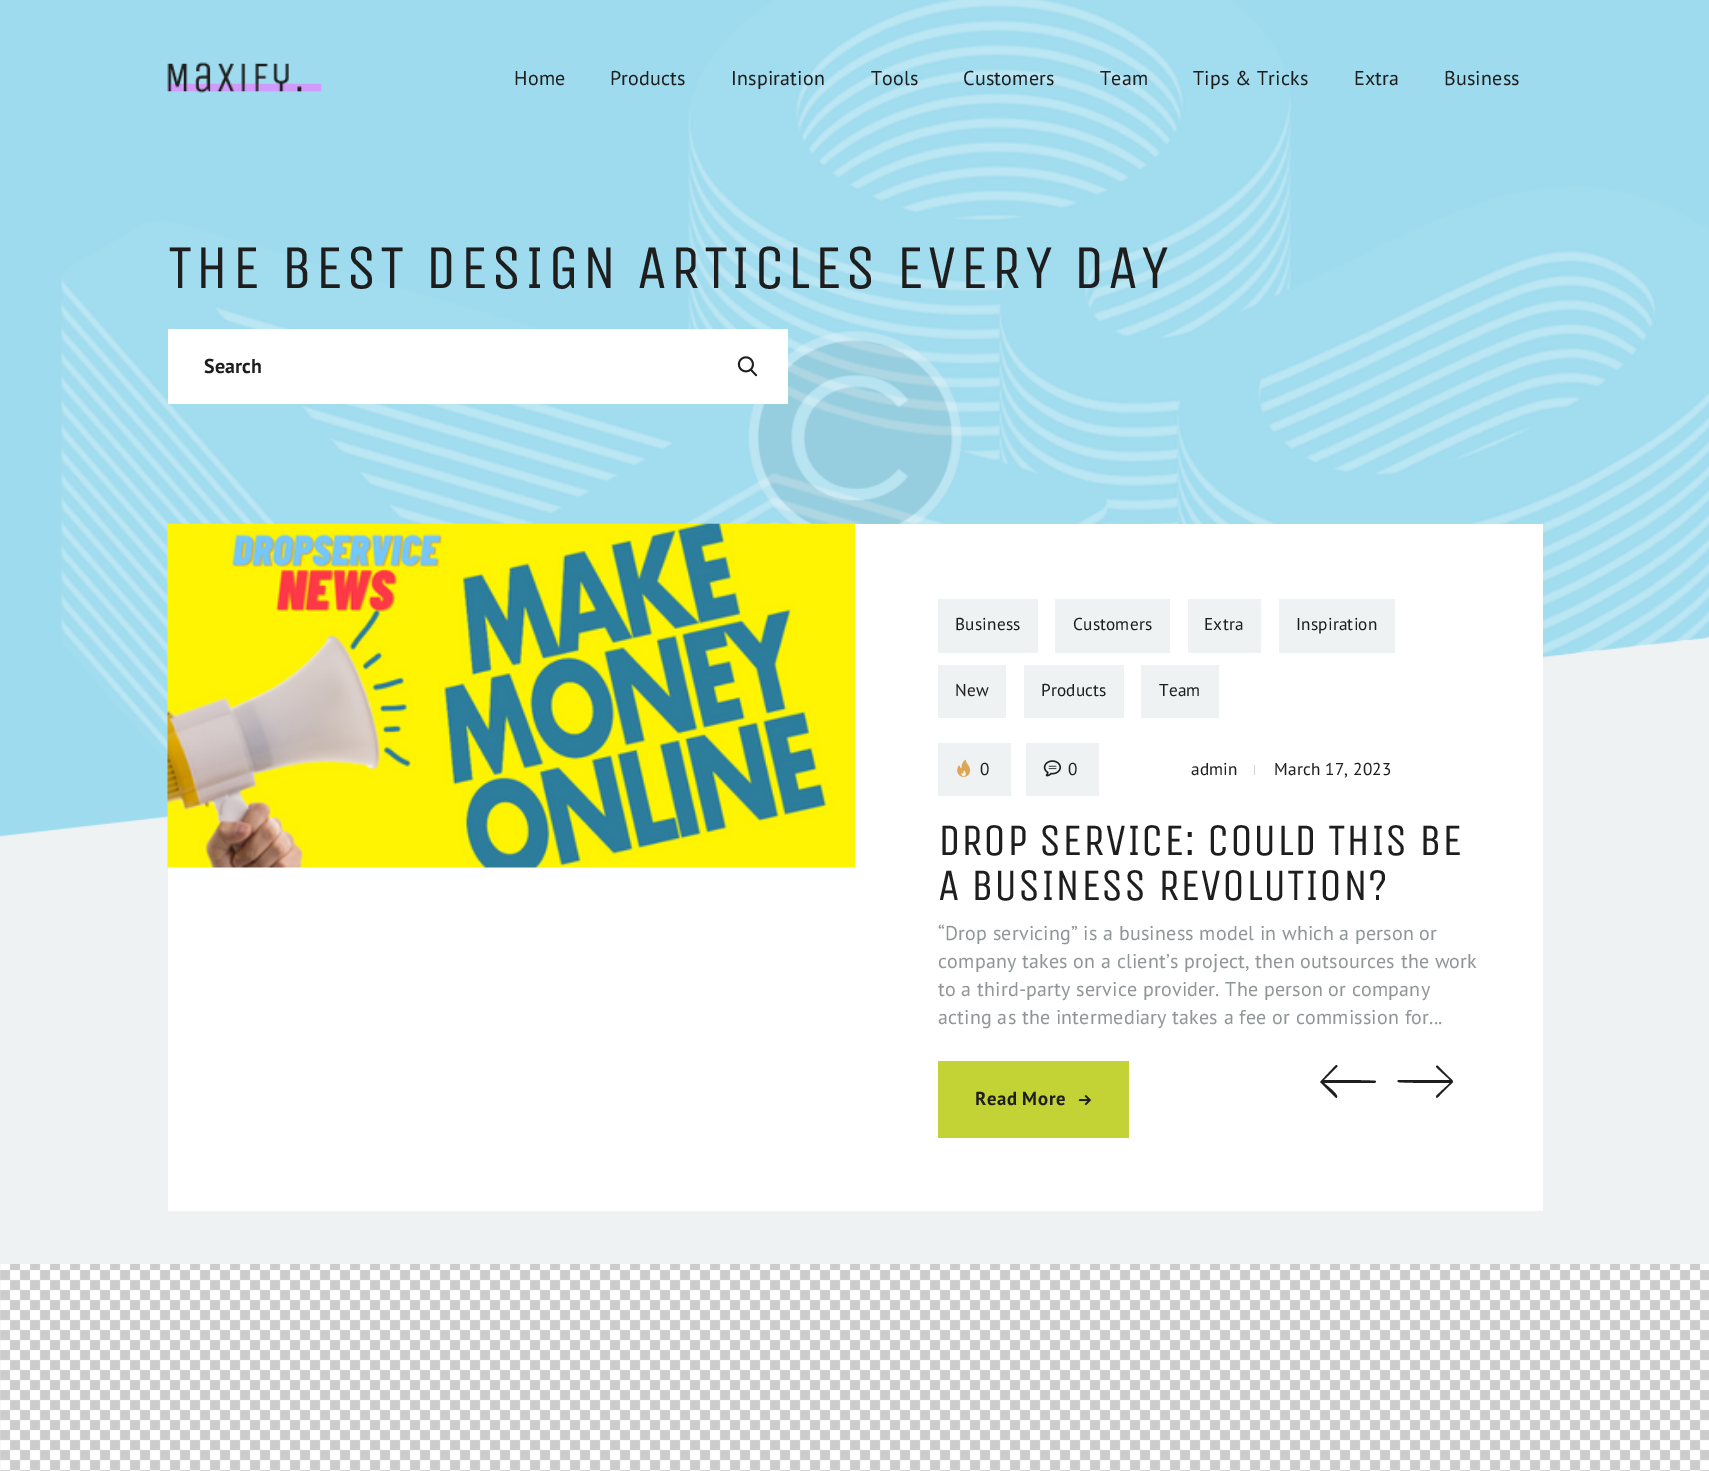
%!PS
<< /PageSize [1709 1471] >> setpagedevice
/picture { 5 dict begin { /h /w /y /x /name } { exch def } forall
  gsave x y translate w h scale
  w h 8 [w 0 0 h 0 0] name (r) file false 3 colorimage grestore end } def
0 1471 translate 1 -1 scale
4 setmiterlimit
1 setgray
0 0 1709 1471 rectfill
(img1.rgb) 0 1264 1709 207 picture
0.937 0.949 0.953 setrgbcolor
0 637 1709 627 rectfill
(img2.rgb) 0 0 1709 837 picture
(img3.rgb) 167 62 155 31 picture
/PTSans-Regular [20 0 0 -20 0 0] selectfont
0.118 setgray
514 85 moveto 0.2 0 (Home) ashow
610 85 moveto 0.2 0 (Products) ashow
731 85 moveto 0.2 0 (Inspiration) ashow
871 85 moveto 0.2 0 (Tools) ashow
963 85 moveto 0.2 0 (Customers) ashow
1100 85 moveto 0.2 0 (Team) ashow
1193 85 moveto 0.2 0 (Tips & Tricks) ashow
1354 85 moveto 0.2 0 (Extra) ashow
1444 85 moveto 0.2 0 (Business) ashow
/UnicaOne-Regular [62.5 0 0 -62.5 0 0] selectfont
168 288 moveto 3.1 0 (THE BEST DESIGN ARTICLES EVERY DAY) ashow
1 setgray
168 329 620 75 rectfill
/PTSans-Bold [20 0 0 -20 0 0] selectfont
0.118 setgray
204 373 moveto 0.2 0 (Search) ashow
(img4.rgb) 737 356 21 21 picture
1 setgray
168 524 1375 687 rectfill
(img5.rgb) 167 523 688 345 picture
0.937 0.949 0.953 setrgbcolor
938 599 100 54 rectfill
/PTSans-Regular [17.25 0 0 -17.25 0 0] selectfont
0.118 setgray
955 630 moveto 0.2 0 (Business) ashow
0.937 0.949 0.953 setrgbcolor
1055 599 115 54 rectfill
0.118 setgray
1073 630 moveto 0.2 0 (Customers) ashow
0.937 0.949 0.953 setrgbcolor
1188 599 73 54 rectfill
0.118 setgray
1204 630 moveto 0.2 0 (Extra) ashow
0.937 0.949 0.953 setrgbcolor
1279 599 116 54 rectfill
0.118 setgray
1296 630 moveto 0.2 0 (Inspiration) ashow
0.937 0.949 0.953 setrgbcolor
938 665 68 53 rectfill
0.118 setgray
955 696 moveto 0.2 0 (New) ashow
0.937 0.949 0.953 setrgbcolor
1024 665 100 53 rectfill
0.118 setgray
1041 696 moveto 0.2 0 (Products) ashow
0.937 0.949 0.953 setrgbcolor
1141 665 78 53 rectfill
0.118 setgray
1159 696 moveto 0.2 0 (Team) ashow
0.937 0.949 0.953 setrgbcolor
938 743 73 53 rectfill
(img6.rgb) 957 759 14 18 picture
0.118 setgray
980 775 moveto 0.2 0 (0) ashow
0.937 0.949 0.953 setrgbcolor
1026 743 73 53 rectfill
(img7.rgb) 1043 760 19 17 picture
0.118 setgray
1068 775 moveto 0.2 0 (0) ashow
1191 775 moveto 0.2 0 (admin) ashow
0.808 0.835 0.847 setrgbcolor
1254 765 1 10 rectfill
0.118 setgray
1274 775 moveto 0.2 0 (March 17, 2023) ashow
/UnicaOne-Regular [45 0 0 -45 0 0] selectfont
938 855 moveto 0.45 0 (DROP SERVICE: COULD THIS BE) ashow
938 900 moveto 0.45 0 (A BUSINESS REVOLUTION?) ashow
/PTSans-Regular [20 0 0 -20 0 0] selectfont
0.565 0.588 0.596 setrgbcolor
938 940 moveto 0.2 0 (“Drop servicing” is a business model in which a person or) ashow
938 968 moveto 0.2 0 (company takes on a client’s project, then outsources the work) ashow
938 996 moveto 0.2 0 (to a third-party service provider. The person or company) ashow
938 1024 moveto 0.2 0 (acting as the intermediary takes a fee or commission for...) ashow
0.765 0.827 0.212 setrgbcolor
938 1061 191 77 rectfill
/PTSans-Bold [18.75 0 0 -18.75 0 0] selectfont
0.118 setgray
975 1105 moveto 0.5 0 (Read More) ashow
(img8.rgb) 1078 1095 14 11 picture
newpath 1321 1081 moveto 1320 1082 lineto 1333 1095 lineto 1335 1097 1337 1099 1337 1097 curveto 1338 1095 1332 1090 1331 1089 curveto 1324 1083 lineto 1375 1083 lineto 1375 1083 1376 1082 1376 1081 curveto 1375 1080 1330 1080 1324 1080 curveto 1337 1067 lineto 1338 1066 1337 1065 1336 1065 curveto closepath fill
newpath 1438 1066 moveto 1437 1065 1436 1066 1436 1067 curveto 1450 1080 lineto 1399 1080 lineto 1398 1080 1397 1081 1398 1082 curveto 1399 1083 1444 1083 1450 1083 curveto 1436 1096 lineto 1436 1097 lineto 1437 1099 1439 1096 1440 1095 curveto 1450 1085 lineto 1454 1081 1454 1082 1450 1078 curveto closepath fill
showpage
